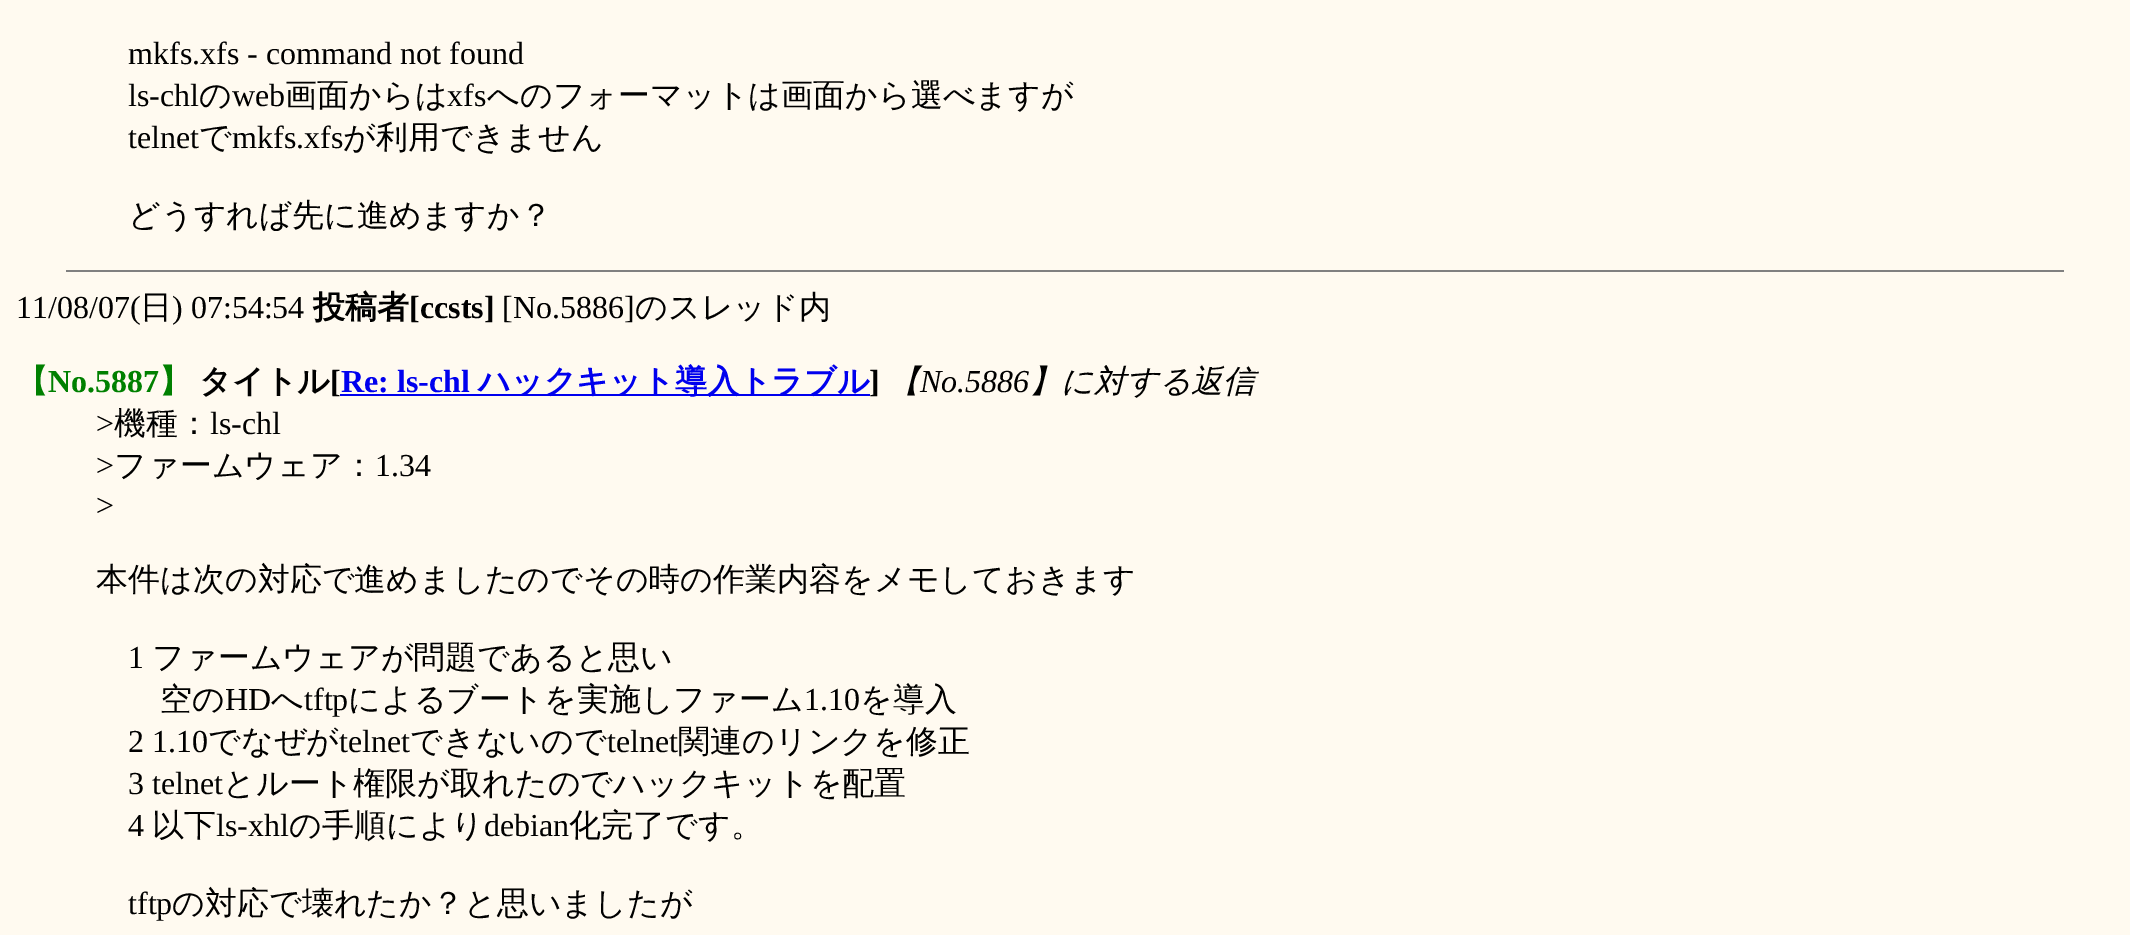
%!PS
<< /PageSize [2130 935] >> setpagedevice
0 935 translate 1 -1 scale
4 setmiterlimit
1 0.98 0.941 setrgbcolor
0 0 2130 935 rectfill
/LiberationSerif-Regular [32 0 0 -32 0 0] selectfont
0 setgray
128 64 moveto (mkfs.xfs - command not found) show
128 106 moveto (ls-chl) show
/WenQuanYiZenHei-Medium [32 0 0 -32 0 0] selectfont
199 106 moveto (の) show
/LiberationSerif-Regular [32 0 0 -32 0 0] selectfont
232 106 moveto (web) show
/WenQuanYiZenHei-Medium [32 0 0 -32 0 0] selectfont
285 106 moveto (画面からは) show
/LiberationSerif-Regular [32 0 0 -32 0 0] selectfont
447 106 moveto (xfs) show
/WenQuanYiZenHei-Medium [32 0 0 -32 0 0] selectfont
487 106 moveto (へのフォーマットは画面から選べますが) show
/LiberationSerif-Regular [32 0 0 -32 0 0] selectfont
128 148 moveto (telnet) show
/WenQuanYiZenHei-Medium [32 0 0 -32 0 0] selectfont
199 148 moveto (で) show
/LiberationSerif-Regular [32 0 0 -32 0 0] selectfont
232 148 moveto (mkfs.xfs) show
/WenQuanYiZenHei-Medium [32 0 0 -32 0 0] selectfont
343 148 moveto (が利用できません) show
128 226 moveto (どうすれば先に進めますか？) show
0.502 setgray
66 270 1998 2 rectfill
/LiberationSerif-Regular [32 0 0 -32 0 0] selectfont
0 setgray
16 318 moveto (11/08/07\() show
/WenQuanYiZenHei-Medium [32 0 0 -32 0 0] selectfont
140 318 moveto (日) show
/LiberationSerif-Regular [32 0 0 -32 0 0] selectfont
172 318 moveto (\) 07:54:54) show
/WenQuanYiZenHei-Bold [32 0 0 -32 0 0] selectfont
313 318 moveto (投稿者) show
/LiberationSerif-Bold [32 0 0 -32 0 0] selectfont
409 318 moveto ([ccsts]) show
/LiberationSerif-Regular [32 0 0 -32 0 0] selectfont
502 318 moveto ([No.5886]) show
/WenQuanYiZenHei-Medium [32 0 0 -32 0 0] selectfont
635 318 moveto (のスレッド内) show
/WenQuanYiZenHei-Bold [32 0 0 -32 0 0] selectfont
0 0.502 0 setrgbcolor
16 392 moveto (【) show
/LiberationSerif-Bold [32 0 0 -32 0 0] selectfont
48 392 moveto (No.5887) show
/WenQuanYiZenHei-Bold [32 0 0 -32 0 0] selectfont
159 392 moveto (】) show
0 setgray
199 392 moveto (タイトル) show
/LiberationSerif-Bold [32 0 0 -32 0 0] selectfont
330 392 moveto ([) show
0 0 0.933 setrgbcolor
340 394 530 2 rectfill
341 392 moveto (Re: ls-chl) show
/WenQuanYiZenHei-Bold [32 0 0 -32 0 0] selectfont
478 392 moveto (ハックキット導入トラブル) show
/LiberationSerif-Bold [32 0 0 -32 0 0] selectfont
0 setgray
869 392 moveto (]) show
/WenQuanYiZenHei-MediumItalic [32 0 0 -32 0 0] selectfont
888 392 moveto (【) show
/LiberationSerif-Italic [32 0 0 -32 0 0] selectfont
920 392 moveto (No.5886) show
/WenQuanYiZenHei-MediumItalic [32 0 0 -32 0 0] selectfont
1029 392 moveto (】に対する返信) show
/LiberationSerif-Regular [32 0 0 -32 0 0] selectfont
96 434 moveto (>) show
/WenQuanYiZenHei-Medium [32 0 0 -32 0 0] selectfont
114 434 moveto (機種：) show
/LiberationSerif-Regular [32 0 0 -32 0 0] selectfont
210 434 moveto (ls-chl) show
96 476 moveto (>) show
/WenQuanYiZenHei-Medium [32 0 0 -32 0 0] selectfont
114 476 moveto (ファームウェア：) show
/LiberationSerif-Regular [32 0 0 -32 0 0] selectfont
375 476 moveto (1.34) show
96 516 moveto (>) show
/WenQuanYiZenHei-Medium [32 0 0 -32 0 0] selectfont
96 590 moveto (本件は次の対応で進めましたのでその時の作業内容をメモしておきます) show
/LiberationSerif-Regular [32 0 0 -32 0 0] selectfont
128 668 moveto (1) show
/WenQuanYiZenHei-Medium [32 0 0 -32 0 0] selectfont
152 668 moveto (ファームウェアが問題であると思い) show
160 710 moveto (空の) show
/LiberationSerif-Regular [32 0 0 -32 0 0] selectfont
225 710 moveto (HD) show
/WenQuanYiZenHei-Medium [32 0 0 -32 0 0] selectfont
271 710 moveto (へ) show
/LiberationSerif-Regular [32 0 0 -32 0 0] selectfont
304 710 moveto (tftp) show
/WenQuanYiZenHei-Medium [32 0 0 -32 0 0] selectfont
348 710 moveto (によるブートを実施しファーム) show
/LiberationSerif-Regular [32 0 0 -32 0 0] selectfont
804 710 moveto (1.10) show
/WenQuanYiZenHei-Medium [32 0 0 -32 0 0] selectfont
860 710 moveto (を導入) show
/LiberationSerif-Regular [32 0 0 -32 0 0] selectfont
128 752 moveto (2 1.10) show
/WenQuanYiZenHei-Medium [32 0 0 -32 0 0] selectfont
208 752 moveto (でなぜが) show
/LiberationSerif-Regular [32 0 0 -32 0 0] selectfont
339 752 moveto (telnet) show
/WenQuanYiZenHei-Medium [32 0 0 -32 0 0] selectfont
410 752 moveto (できないので) show
/LiberationSerif-Regular [32 0 0 -32 0 0] selectfont
607 752 moveto (telnet) show
/WenQuanYiZenHei-Medium [32 0 0 -32 0 0] selectfont
678 752 moveto (関連のリンクを修正) show
/LiberationSerif-Regular [32 0 0 -32 0 0] selectfont
128 794 moveto (3 telnet) show
/WenQuanYiZenHei-Medium [32 0 0 -32 0 0] selectfont
223 794 moveto (とルート権限が取れたのでハックキットを配置) show
/LiberationSerif-Regular [32 0 0 -32 0 0] selectfont
128 836 moveto (4) show
/WenQuanYiZenHei-Medium [32 0 0 -32 0 0] selectfont
152 836 moveto (以下) show
/LiberationSerif-Regular [32 0 0 -32 0 0] selectfont
216 836 moveto (ls-xhl) show
/WenQuanYiZenHei-Medium [32 0 0 -32 0 0] selectfont
289 836 moveto (の手順により) show
/LiberationSerif-Regular [32 0 0 -32 0 0] selectfont
484 836 moveto (debian) show
/WenQuanYiZenHei-Medium [32 0 0 -32 0 0] selectfont
569 836 moveto (化完了です。) show
/LiberationSerif-Regular [32 0 0 -32 0 0] selectfont
128 914 moveto (tftp) show
/WenQuanYiZenHei-Medium [32 0 0 -32 0 0] selectfont
172 914 moveto (の対応で壊れたか？と思いましたが) show
showpage
